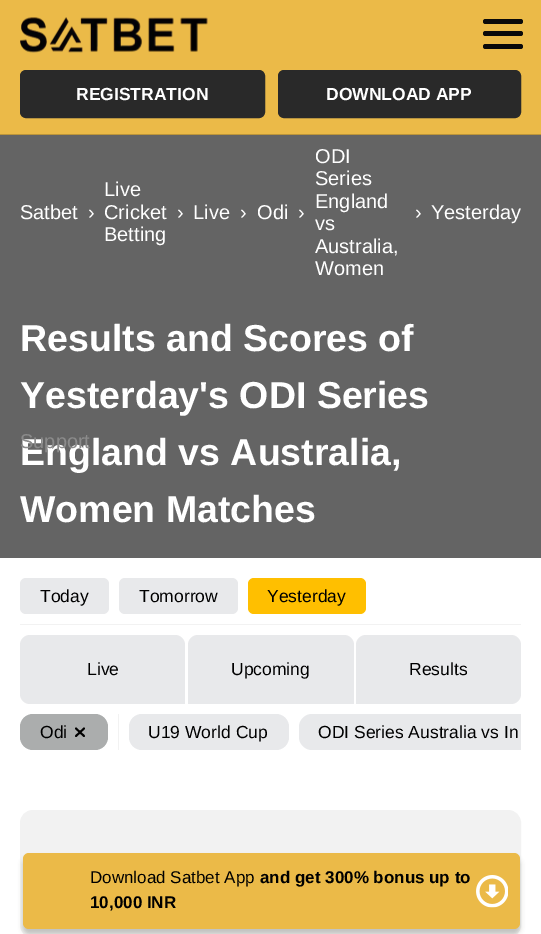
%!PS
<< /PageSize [541 934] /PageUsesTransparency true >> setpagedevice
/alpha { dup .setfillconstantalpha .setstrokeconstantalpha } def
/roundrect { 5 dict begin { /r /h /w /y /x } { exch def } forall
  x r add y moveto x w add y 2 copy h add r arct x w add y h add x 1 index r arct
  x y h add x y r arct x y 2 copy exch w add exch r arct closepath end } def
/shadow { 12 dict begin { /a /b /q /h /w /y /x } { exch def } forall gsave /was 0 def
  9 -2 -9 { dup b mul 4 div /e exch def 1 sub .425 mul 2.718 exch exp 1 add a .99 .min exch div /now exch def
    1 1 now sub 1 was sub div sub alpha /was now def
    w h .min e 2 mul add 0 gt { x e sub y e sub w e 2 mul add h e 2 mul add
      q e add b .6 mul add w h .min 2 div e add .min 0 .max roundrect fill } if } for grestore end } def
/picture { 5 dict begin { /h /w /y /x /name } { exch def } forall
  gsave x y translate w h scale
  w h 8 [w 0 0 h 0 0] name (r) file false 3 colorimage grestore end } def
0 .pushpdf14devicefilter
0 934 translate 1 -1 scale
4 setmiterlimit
1 setgray
0 0 541 934 rectfill
0.922 0.729 0.282 setrgbcolor
0 0 541 135 rectfill
(img1.rgb) 20 17 188 36 picture
0.039 setgray
483 19 40 5 2.5 roundrect fill
483 31 40 5 2.5 roundrect fill
483 44 40 5 2.5 roundrect fill
0.161 setgray
21.5 71.5 242 45 4.5 roundrect gsave fill grestore
3 setlinewidth
stroke
/LiberationSans-Bold [17.5 0 0 -17.5 0 0] selectfont
1 setgray
76 100 moveto (REGISTRATION) show
0.161 setgray
279.5 71.5 240 45 4.5 roundrect gsave fill grestore
stroke
1 setgray
326 100 moveto (DOWNLOAD APP) show
0.392 setgray
0 135 541 423 rectfill
/LiberationSans-Bold [37.5 0 0 -37.5 0 0] selectfont
1 setgray
20 465 moveto (England vs Australia,) show
/LiberationSans-Regular [20 0 0 -20 0 0] selectfont
0.545 setgray
20 448 moveto (Support) show
0.2 alpha
0.008 setgray
0 134 541 1 rectfill
1 alpha
1 setgray
20 219 moveto (Satbet) show
88 219 moveto (›) show
104 196 moveto (Live) show
104 219 moveto (Cricket) show
104 241 moveto (Betting) show
177 219 moveto (›) show
193 219 moveto (Live) show
240 219 moveto (›) show
257 219 moveto (Odi) show
298 219 moveto (›) show
315 163 moveto (ODI) show
315 185 moveto (Series) show
315 208 moveto (England) show
315 230 moveto (vs) show
315 253 moveto (Australia,) show
315 275 moveto (Women) show
415 219 moveto (›) show
431 219 moveto (Yesterday) show
/LiberationSans-Bold [37.5 0 0 -37.5 0 0] selectfont
20 351 moveto (Results and Scores of) show
20 408 moveto (Yesterday's ODI Series) show
20 522 moveto (Women Matches) show
0.949 setgray
20 624 501 1 rectfill
0.91 0.914 0.922 setrgbcolor
20 578 89 36 6 roundrect fill
/LiberationSans-Regular [17.5 0 0 -17.5 0 0] selectfont
0 setgray
40 602 moveto (Today) show
0.91 0.914 0.922 setrgbcolor
119 578 119 36 6 roundrect fill
0 setgray
139 602 moveto (Tomorrow) show
1 0.749 0 setrgbcolor
248 578 118 36 6 roundrect fill
0 setgray
267 602 moveto (Yesterday) show
0.91 0.914 0.922 setrgbcolor
newpath 30 635 moveto 175 635 lineto 180.5 635 185 639.5 185 645 curveto 185 704 lineto 30 704 lineto 24.5 704 20 699.5 20 694 curveto 20 645 lineto 20 639.5 24.5 635 30 635 curveto closepath fill
0 setgray
87 675 moveto (Live) show
0.91 0.914 0.922 setrgbcolor
newpath 198 635 moveto 344 635 lineto 349.5 635 354 639.5 354 645 curveto 354 704 lineto 188 704 lineto 188 645 lineto 188 639.5 192.5 635 198 635 curveto closepath fill
0 setgray
231 675 moveto (Upcoming) show
0.91 0.914 0.922 setrgbcolor
newpath 366 635 moveto 511 635 lineto 516.5 635 521 639.5 521 645 curveto 521 694 lineto 521 699.5 516.5 704 511 704 curveto 356 704 lineto 356 645 lineto 356 639.5 360.5 635 366 635 curveto closepath fill
0 setgray
409 675 moveto (Results) show
0.671 0.678 0.678 setrgbcolor
20 714 88 36 13 roundrect fill
0 setgray
40 738 moveto (Odi) show
1.9 setlinewidth
1 setlinecap
1 setlinejoin
newpath 84 728.5 moveto 76 736 lineto 76 728.5 moveto 84 736 lineto stroke
0.949 setgray
118 714 1 36 rectfill
0.91 0.914 0.922 setrgbcolor
129 714 160 36 13 roundrect fill
0 setgray
148 738 moveto (U19 World Cup) show
0.91 0.914 0.922 setrgbcolor
newpath 312 714 moveto 521 714 lineto 521 750 lineto 312 750 lineto 305 750 299 744 299 737 curveto 299 727 lineto 299 720 305 714 312 714 curveto closepath fill
0 setgray
318 738 moveto (ODI Series Australia vs In) show
0.949 setgray
20.5 810.5 500 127 12.5 roundrect gsave fill grestore
1 setlinewidth
0 setlinecap
0 setlinejoin
stroke
0.188 0.208 0.153 setrgbcolor
23 858 497 76 6 2.5 0.25 shadow
0.922 0.729 0.282 setrgbcolor
23 853 497 76 6 roundrect fill
/LiberationSans-Regular [17 0 0 -17 0 0] selectfont
0 setgray
90 883 moveto (Download Satbet App) show
/LiberationSans-Bold [17 0 0 -17 0 0] selectfont
260 883 moveto (and get 300% bonus up to) show
90 908 moveto (10,000 INR) show
(img2.rgb) 476 875 32 33 picture
.poppdf14devicefilter showpage
